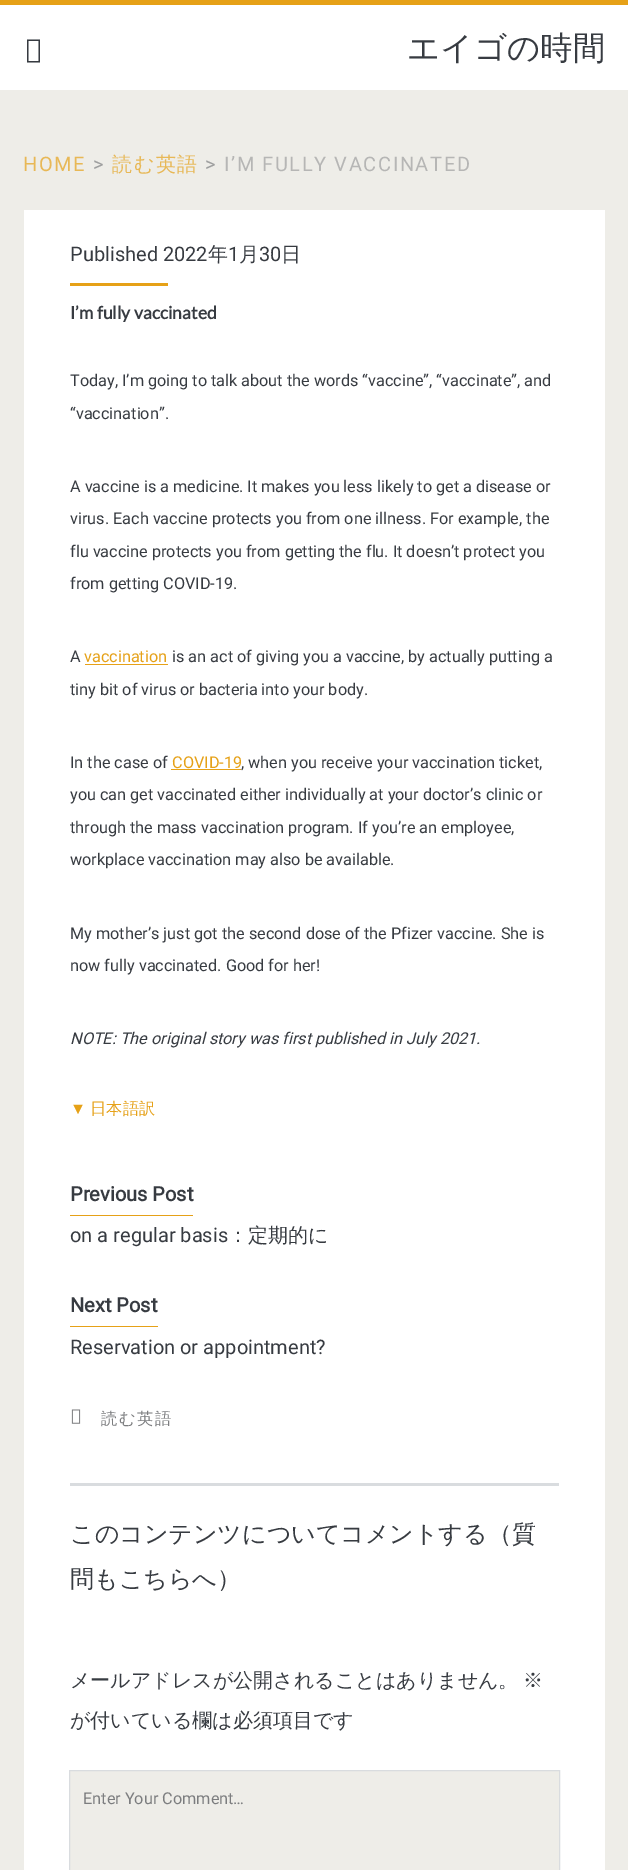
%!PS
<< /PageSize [628 1870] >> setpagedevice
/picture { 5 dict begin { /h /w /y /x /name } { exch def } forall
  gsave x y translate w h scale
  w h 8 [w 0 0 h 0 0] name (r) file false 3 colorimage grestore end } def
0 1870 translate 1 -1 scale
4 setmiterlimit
0.933 0.929 0.91 setrgbcolor
0 0 628 1870 rectfill
1 setgray
0 5 628 85 rectfill
0.902 0.631 0.09 setrgbcolor
0 0 628 5 rectfill
0.216 0.231 0.255 setrgbcolor
newpath 27 62.5 moveto 27 39.5 lineto 40 39.5 lineto 40 62.5 lineto closepath 28.5 61 moveto 38.5 61 lineto 38.5 41 lineto 28.5 41 lineto closepath fill
/WenQuanYiZenHei-Medium [32.5 0 0 -32.5 0 0] selectfont
407 59 moveto (エイゴの時間) show
/Roboto-Regular [20 0 0 -20 0 0] selectfont
0.91 0.722 0.337 setrgbcolor
23 171 moveto 1.6 0 (HOME) ashow
0.62 0.624 0.624 setrgbcolor
93 171 moveto 1.6 0 (>) ashow
/WenQuanYiZenHei-Medium [20 0 0 -20 0 0] selectfont
0.91 0.722 0.337 setrgbcolor
112 171 moveto 1.6 0 (読む英語) ashow
/Roboto-Regular [20 0 0 -20 0 0] selectfont
0.62 0.624 0.624 setrgbcolor
205 171 moveto 1.6 0 (>) ashow
0.714 0.714 0.71 setrgbcolor
224 171 moveto 1.6 0 (I’M FULLY VACCINATED) ashow
1 setgray
24 210 581 1660 rectfill
0.216 0.231 0.255 setrgbcolor
70 261 moveto (Published 2022) show
/WenQuanYiZenHei-Medium [20 0 0 -20 0 0] selectfont
208 261 moveto (年) show
/Roboto-Regular [20 0 0 -20 0 0] selectfont
228 261 moveto (1) show
/WenQuanYiZenHei-Medium [20 0 0 -20 0 0] selectfont
239 261 moveto (月) show
/Roboto-Regular [20 0 0 -20 0 0] selectfont
259 261 moveto (30) show
/WenQuanYiZenHei-Medium [20 0 0 -20 0 0] selectfont
281 261 moveto (日) show
0.902 0.631 0.09 setrgbcolor
70 283 98 3 rectfill
/Lato-Bold [17.5 0 0 -17.5 0 0] selectfont
0.216 0.231 0.255 setrgbcolor
70 319 moveto (I’m fully vaccinated) show
/Roboto-Regular [16.25 0 0 -16.25 0 0] selectfont
70 386 moveto (Today, I’m going to talk about the words “vaccine”, “vaccinate”, and) show
70 419 moveto (“vaccination”.) show
70 492 moveto (A vaccine is a medicine. It makes you less likely to get a disease or) show
70 524 moveto (virus. Each vaccine protects you from one illness. For example, the) show
70 557 moveto (flu vaccine protects you from getting the flu. It doesn’t protect you) show
70 589 moveto (from getting COVID-19.) show
70 662 moveto (A) show
0.902 0.631 0.09 setrgbcolor
84 662 moveto (vaccination) show
85 664 83 1 rectfill
0.216 0.231 0.255 setrgbcolor
172 662 moveto (is an act of giving you a vaccine, by actually putting a) show
70 695 moveto (tiny bit of virus or bacteria into your body.) show
70 768 moveto (In the case of) show
0.902 0.631 0.09 setrgbcolor
172 768 moveto (COVID-19) show
171 769 70 1 rectfill
0.216 0.231 0.255 setrgbcolor
241 768 moveto (, when you receive your vaccination ticket,) show
70 800 moveto (you can get vaccinated either individually at your doctor’s clinic or) show
70 833 moveto (through the mass vaccination program. If you’re an employee,) show
70 865 moveto (workplace vaccination may also be available.) show
70 939 moveto (My mother’s just got the second dose of the Pfizer vaccine. She is) show
70 971 moveto (now fully vaccinated. Good for her!) show
/Roboto-Italic [16.25 0 0 -16.25 0 0] selectfont
70 1044 moveto (NOTE: The original story was first published in July 2021.) show
/LiberationSerif-Regular [16.25 0 0 -16.25 0 0] selectfont
0.902 0.631 0.09 setrgbcolor
70 1114 moveto (▼) show
/WenQuanYiZenHei-Medium [16.25 0 0 -16.25 0 0] selectfont
90 1114 moveto (日本語訳) show
70 1215 123 1 rectfill
/Roboto-Bold [20 0 0 -20 0 0] selectfont
0.216 0.231 0.255 setrgbcolor
70 1201 moveto (Previous Post) show
/Roboto-Regular [20 0 0 -20 0 0] selectfont
70 1242 moveto (on a regular basis) show
/WenQuanYiZenHei-Medium [20 0 0 -20 0 0] selectfont
228 1242 moveto (：定期的に) show
0.902 0.631 0.09 setrgbcolor
70 1326 88 1 rectfill
/Roboto-Bold [20 0 0 -20 0 0] selectfont
0.216 0.231 0.255 setrgbcolor
70 1312 moveto (Next Post) show
/Roboto-Regular [20 0 0 -20 0 0] selectfont
70 1354 moveto (Reservation or appointment?) show
(img1.rgb) 71 1409 10 15 picture
/WenQuanYiZenHei-Medium [16.25 0 0 -16.25 0 0] selectfont
0.486 0.49 0.498 setrgbcolor
101 1424 moveto 1.5 0 (読む英語) ashow
0.851 0.863 0.875 setrgbcolor
70 1483 489 3 rectfill
/WenQuanYiZenHei-Medium [24 0 0 -24 0 0] selectfont
0.216 0.231 0.255 setrgbcolor
70 1542 moveto (このコンテンツについてコメントする（質) show
70 1587 moveto (問もこちらへ）) show
/WenQuanYiZenHei-Medium [20 0 0 -20 0 0] selectfont
70 1687 moveto (メールアドレスが公開されることはありません。) show
523 1687 moveto (※) show
70 1727 moveto (が付いている欄は必須項目です) show
0.933 0.929 0.91 setrgbcolor
70 1771 489 99 rectfill
0.851 0.863 0.875 setrgbcolor
69.5 1770.5 490 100 rectstroke
/Roboto-Regular [16.25 0 0 -16.25 0 0] selectfont
0.486 0.49 0.498 setrgbcolor
83 1804 moveto (Enter Your Comment…) show
showpage
